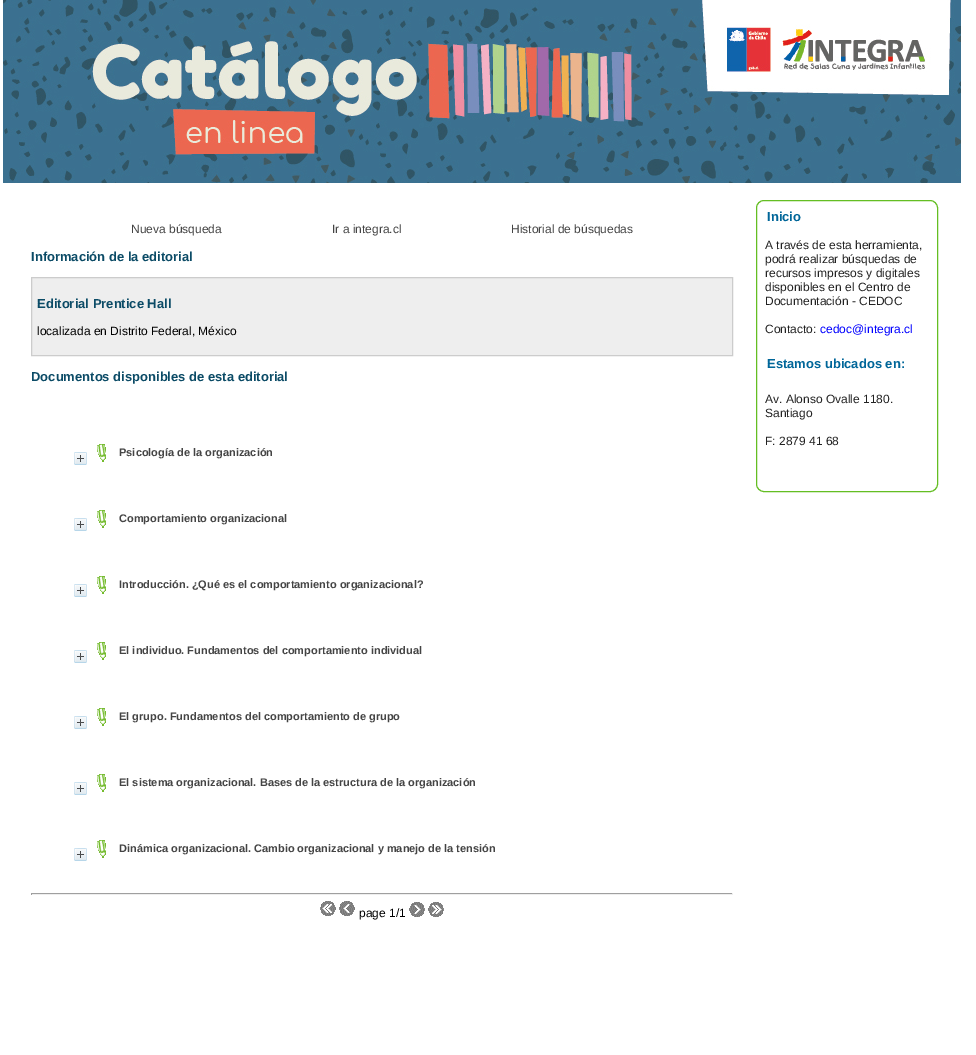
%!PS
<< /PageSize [976 1055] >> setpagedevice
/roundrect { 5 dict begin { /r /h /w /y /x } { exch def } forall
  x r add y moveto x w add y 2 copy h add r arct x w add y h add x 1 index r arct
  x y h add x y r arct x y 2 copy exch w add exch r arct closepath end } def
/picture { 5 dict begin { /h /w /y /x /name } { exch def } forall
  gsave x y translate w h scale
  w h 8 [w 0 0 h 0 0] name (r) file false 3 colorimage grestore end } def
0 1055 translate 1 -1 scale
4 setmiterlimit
1 setgray
0 0 976 1055 rectfill
(img1.rgb) 3 0 958 183 picture
/LiberationSans-Regular [12 0 0 -12 0 0] selectfont
0.267 setgray
131 233 moveto (Nueva búsqueda) show
332 233 moveto (Ir a integra.cl) show
511 233 moveto (Historial de búsquedas) show
/LiberationSans-Bold [13 0 0 -13 0 0] selectfont
0.043 0.294 0.4 setrgbcolor
31 261 moveto (Información de la editorial) show
0.933 setgray
newpath 31.5 277.5 moveto 732.5 277.5 lineto 732.5 355.5 lineto 31.5 355.5 lineto closepath gsave fill grestore
0.8 setgray
stroke
0.043 0.294 0.4 setrgbcolor
37 308 moveto (Editorial Prentice Hall) show
/LiberationSans-Regular [12 0 0 -12 0 0] selectfont
0 setgray
37 335 moveto (localizada en Distrito Federal, México) show
/LiberationSans-Bold [13 0 0 -13 0 0] selectfont
0.043 0.294 0.4 setrgbcolor
31 381 moveto (Documentos disponibles de esta editorial) show
(img2.rgb) 74 452 13 13 picture
(img3.rgb) 97 444 9 18 picture
/LiberationSans-Bold [11 0 0 -11 0 0] selectfont
0.267 setgray
119 456 moveto (Psicología de la organización) show
(img2.rgb) 74 518 13 13 picture
(img3.rgb) 97 510 9 18 picture
119 522 moveto (Comportamiento organizacional) show
(img2.rgb) 74 584 13 13 picture
(img3.rgb) 97 576 9 18 picture
119 588 moveto (Introducción. ¿Qué es el comportamiento organizacional?) show
(img2.rgb) 74 650 13 13 picture
(img3.rgb) 97 642 9 18 picture
119 654 moveto (El individuo. Fundamentos del comportamiento individual) show
(img2.rgb) 74 716 13 13 picture
(img3.rgb) 97 708 9 18 picture
119 720 moveto (El grupo. Fundamentos del comportamiento de grupo) show
(img2.rgb) 74 782 13 13 picture
(img3.rgb) 97 774 9 18 picture
119 786 moveto (El sistema organizacional. Bases de la estructura de la organización) show
(img2.rgb) 74 848 13 13 picture
(img3.rgb) 97 840 9 18 picture
119 852 moveto (Dinámica organizacional. Cambio organizacional y manejo de la tensión) show
0.624 setgray
31 893 702 1 rectfill
0.933 setgray
732 893 1 2 rectfill
31 894 702 1 rectfill
0.624 setgray
31 893 1 2 rectfill
(img4.rgb) 320 901 16 15 picture
(img5.rgb) 339 901 16 15 picture
/LiberationSans-Regular [12 0 0 -12 0 0] selectfont
0 setgray
359 917 moveto (page 1/1) show
(img6.rgb) 409 902 16 15 picture
(img7.rgb) 428 902 16 15 picture
0.392 0.745 0.137 setrgbcolor
756.5 200.5 181 291 7.5 roundrect stroke
/LiberationSans-Bold [13 0 0 -13 0 0] selectfont
0 0.4 0.6 setrgbcolor
767 221 moveto (Inicio) show
/LiberationSans-Regular [12 0 0 -12 0 0] selectfont
0.133 setgray
765 249 moveto (A través de esta herramienta,) show
765 263 moveto (podrá realizar búsquedas de) show
765 277 moveto (recursos impresos y digitales) show
765 291 moveto (disponibles en el Centro de) show
765 305 moveto (Documentación - CEDOC) show
765 333 moveto (Contacto:) show
0 0 1 setrgbcolor
820 333 moveto (cedoc@integra.cl) show
/LiberationSans-Bold [13 0 0 -13 0 0] selectfont
0 0.4 0.6 setrgbcolor
767 368 moveto (Estamos ubicados en:) show
/LiberationSans-Regular [12 0 0 -12 0 0] selectfont
0.133 setgray
765 403 moveto (Av. Alonso Ovalle 1180.) show
765 417 moveto (Santiago) show
765 445 moveto (F: 2879 41 68) show
showpage
